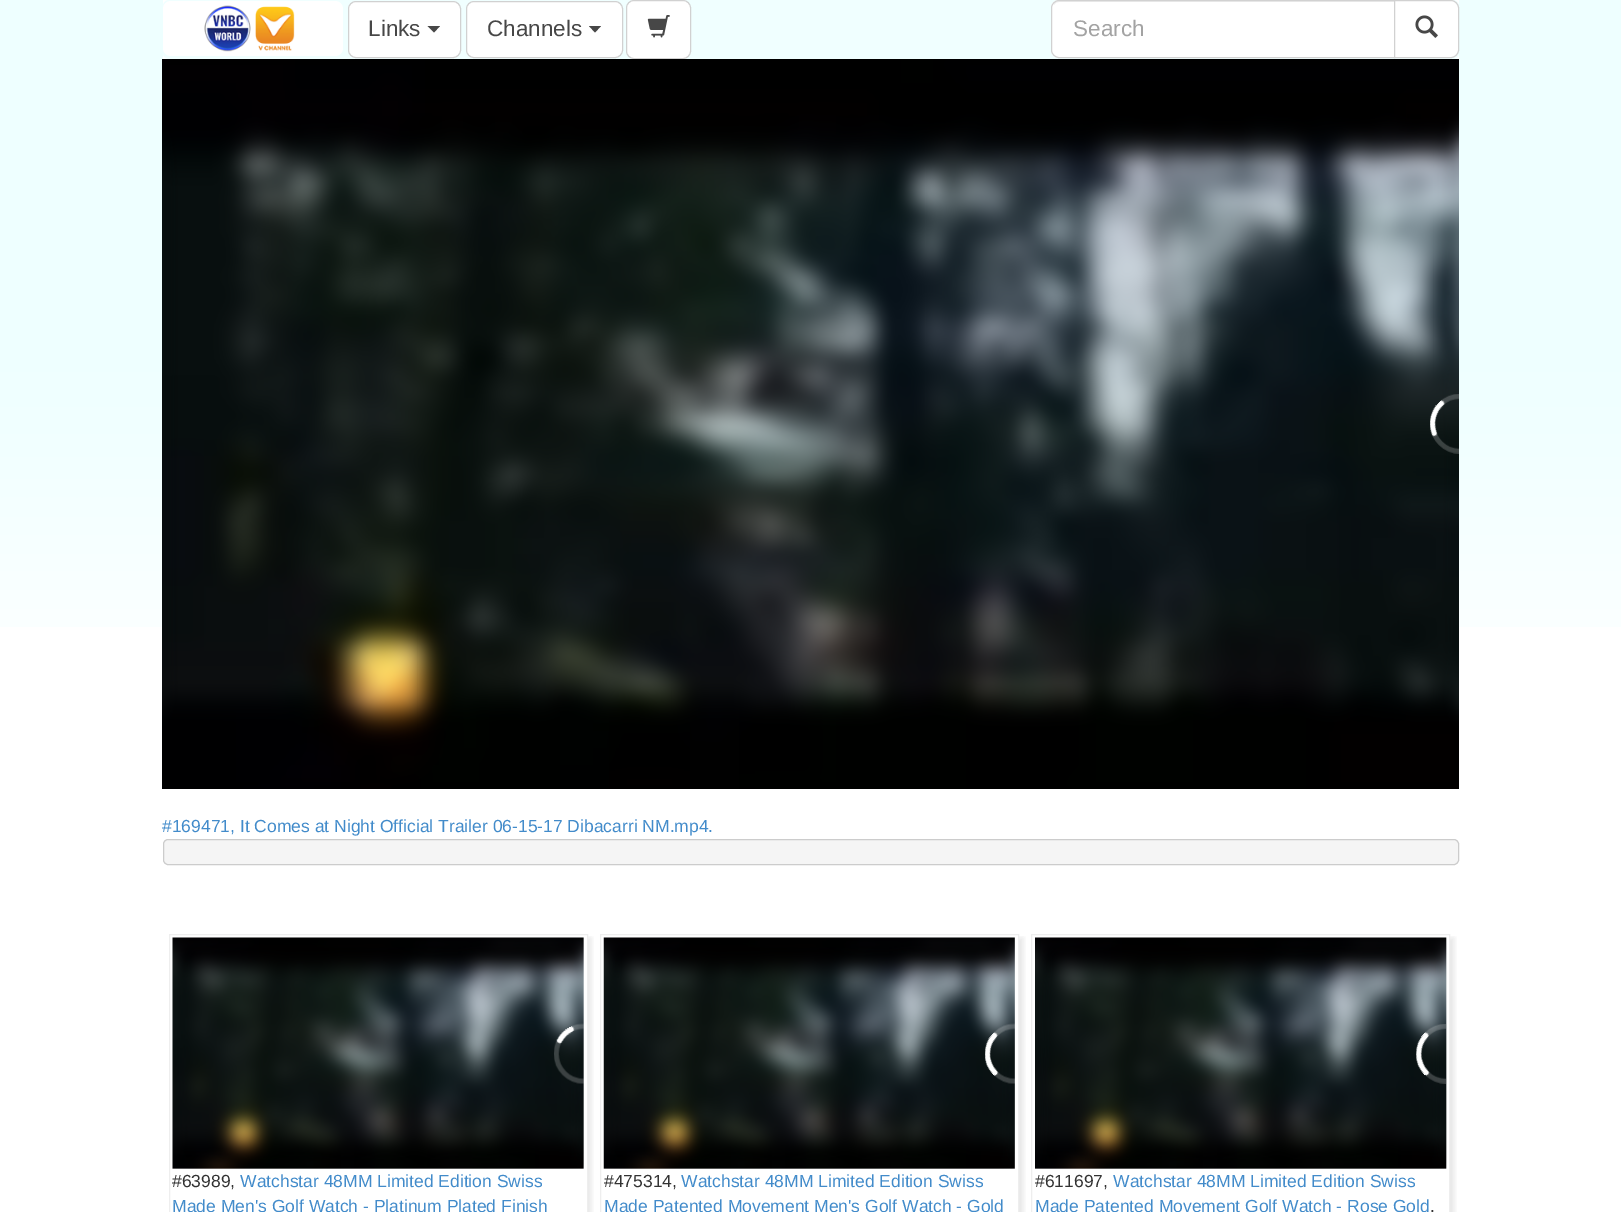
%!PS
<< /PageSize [1621 1212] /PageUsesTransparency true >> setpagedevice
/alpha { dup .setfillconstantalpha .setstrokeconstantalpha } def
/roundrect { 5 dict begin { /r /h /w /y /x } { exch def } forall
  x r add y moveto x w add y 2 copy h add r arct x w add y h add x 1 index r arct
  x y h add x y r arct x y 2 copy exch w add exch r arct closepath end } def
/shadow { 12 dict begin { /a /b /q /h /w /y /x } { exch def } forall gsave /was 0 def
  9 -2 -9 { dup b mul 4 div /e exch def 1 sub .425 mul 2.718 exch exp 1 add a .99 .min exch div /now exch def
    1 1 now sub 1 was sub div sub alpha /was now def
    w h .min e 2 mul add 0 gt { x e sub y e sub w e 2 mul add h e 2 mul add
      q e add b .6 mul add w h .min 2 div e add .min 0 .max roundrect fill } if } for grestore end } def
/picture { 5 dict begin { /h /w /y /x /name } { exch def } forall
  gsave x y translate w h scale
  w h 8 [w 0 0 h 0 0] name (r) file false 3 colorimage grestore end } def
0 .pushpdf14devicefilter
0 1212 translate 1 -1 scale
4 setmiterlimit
1 setgray
0 0 1621 1212 rectfill
(img1.rgb) 0 0 1621 627 picture
163 0 1296 627 rectfill
0.941 1 1 setrgbcolor
163 0 1296 59 6 roundrect fill
1 setgray
163 1 180 55 8 roundrect fill
(img2.rgb) 204 5 91 47 picture
348.5 1.5 112 56 7.5 roundrect gsave fill grestore
0.82 setgray
stroke
/LiberationSans-Regular [22.5 0 0 -22.5 0 0] selectfont
0.278 setgray
368 36 moveto (Links) show
newpath 427.5 26 moveto 440 26 lineto 434 32.5 lineto closepath fill
1 setgray
466.5 1.5 156 56 7.5 roundrect gsave fill grestore
0.82 setgray
stroke
0.278 setgray
487 36 moveto (Channels) show
newpath 589 26 moveto 601 26 lineto 595 32.5 lineto closepath fill
1 setgray
626.5 0.5 64 58 7.5 roundrect gsave fill grestore
0.82 setgray
stroke
(img3.rgb) 647 15 23 23 picture
1 setgray
newpath 1059 0 moveto 1395 0 lineto 1395 58 lineto 1059 58 lineto 1054.5 58 1051 54.5 1051 50 curveto 1051 8 lineto 1051 3.5 1054.5 0 1059 0 curveto closepath fill
0.933 setgray
newpath 1059 2 moveto 1394 2 lineto 1394 1 lineto 1059 1 lineto 1057 1 1054 2 1054 5 curveto 1055 3 1057 2 1059 2 curveto closepath fill
0.82 setgray
newpath 1059 0.5 moveto 1394.5 0.5 lineto 1394.5 57.5 lineto 1059 57.5 lineto 1055 57.5 1051.5 54 1051.5 50 curveto 1051.5 8 lineto 1051.5 4 1055 0.5 1059 0.5 curveto closepath stroke
0.639 setgray
1073 36 moveto (Search) show
1 setgray
newpath 1394.5 0.5 moveto 1451 0.5 lineto 1455 0.5 1458.5 4 1458.5 8 curveto 1458.5 50 lineto 1458.5 54 1455 57.5 1451 57.5 curveto 1394.5 57.5 lineto closepath gsave fill grestore
0.82 setgray
stroke
(img4.rgb) 1415 15 23 23 picture
(img5.rgb) 162 59 1297 730 picture
/LiberationSans-Regular [17.5 0 0 -17.5 0 0] selectfont
0.259 0.545 0.792 setrgbcolor
162 832 moveto (#169471, It Comes at Night Official Trailer 06-15-17 Dibacarri NM.mp4.) show
0.961 setgray
163.5 839.5 1295 25 4.5 roundrect gsave fill grestore
0.8 setgray
stroke
gsave
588 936 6 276 rectclip
0 setgray
173 938 418 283 0 3 0.1 shadow
grestore
0.933 setgray
169.5 934.5 418 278 rectstroke
(img6.rgb) 172 937 412 232 picture
0.2 setgray
172 1187 moveto (#63989,) show
0.259 0.545 0.792 setrgbcolor
240 1187 moveto (Watchstar 48MM Limited Edition Swiss) show
172 1212 moveto (Made Men's Golf Watch - Platinum Plated Finish) show
gsave
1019 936 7 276 rectclip
0 setgray
604 938 419 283 0 3 0.1 shadow
grestore
0.933 setgray
600.5 934.5 418 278 rectstroke
(img7.rgb) 603 937 412 232 picture
0.2 setgray
604 1187 moveto (#475314,) show
0.259 0.545 0.792 setrgbcolor
681 1187 moveto (Watchstar 48MM Limited Edition Swiss) show
604 1212 moveto (Made Patented Movement Men's Golf Watch - Gold) show
gsave
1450 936 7 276 rectclip
0 setgray
1035 938 419 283 0 3 0.1 shadow
grestore
0.933 setgray
1031.5 934.5 418 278 rectstroke
(img8.rgb) 1035 937 412 232 picture
0.2 setgray
1035 1187 moveto (#611697,) show
0.259 0.545 0.792 setrgbcolor
1113 1187 moveto (Watchstar 48MM Limited Edition Swiss) show
1035 1212 moveto (Made Patented Movement Golf Watch - Rose Gold) show
0.2 setgray
1430 1212 moveto (.) show
.poppdf14devicefilter showpage
